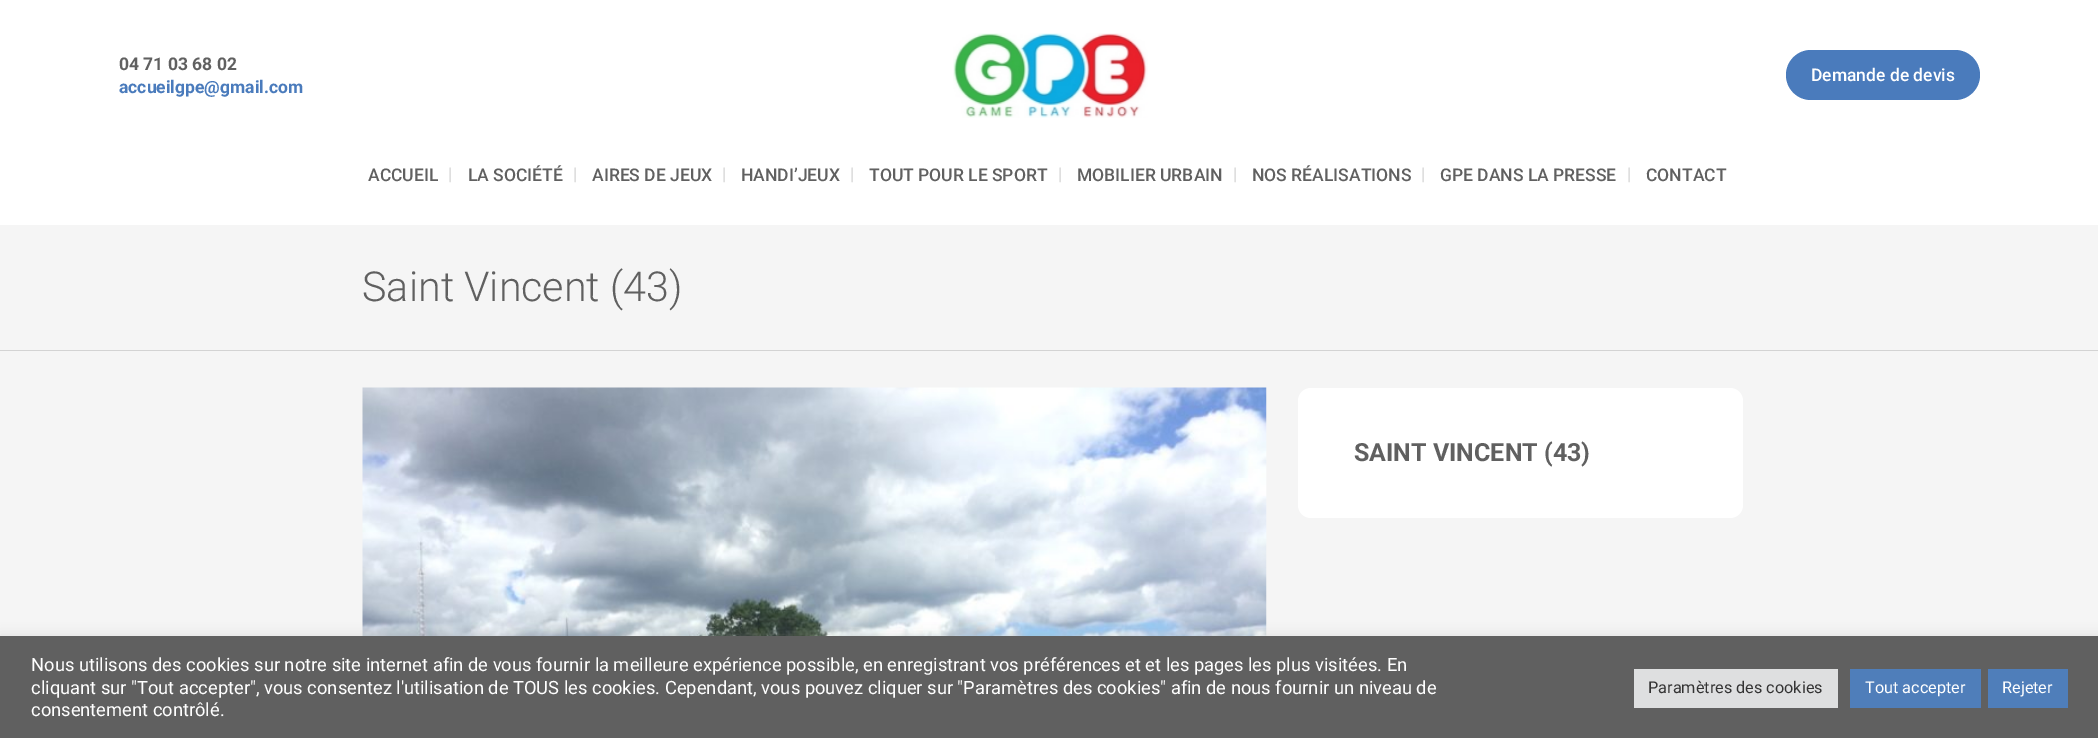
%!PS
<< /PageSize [2098 738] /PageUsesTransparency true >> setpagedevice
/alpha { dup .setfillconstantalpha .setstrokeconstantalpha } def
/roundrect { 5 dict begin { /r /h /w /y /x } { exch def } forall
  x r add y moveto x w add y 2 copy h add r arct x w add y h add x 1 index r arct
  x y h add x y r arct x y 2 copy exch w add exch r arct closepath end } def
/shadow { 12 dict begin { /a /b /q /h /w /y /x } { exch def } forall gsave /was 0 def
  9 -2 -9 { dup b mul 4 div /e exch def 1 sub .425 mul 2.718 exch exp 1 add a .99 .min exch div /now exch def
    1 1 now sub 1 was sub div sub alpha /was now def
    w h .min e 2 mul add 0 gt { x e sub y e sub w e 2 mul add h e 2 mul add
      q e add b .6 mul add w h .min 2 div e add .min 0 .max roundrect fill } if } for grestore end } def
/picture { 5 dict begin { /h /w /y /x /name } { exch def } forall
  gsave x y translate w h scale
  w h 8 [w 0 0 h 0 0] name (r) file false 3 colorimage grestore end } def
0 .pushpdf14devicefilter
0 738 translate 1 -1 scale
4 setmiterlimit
0.961 setgray
0 0 2098 738 rectfill
1 setgray
0 0 2098 225 rectfill
/Roboto-Bold [17.5 0 0 -17.5 0 0] selectfont
0.376 setgray
119 70 moveto (04 71 03 68 02) show
0.29 0.482 0.737 setrgbcolor
119 93 moveto (accueilgpe@gmail.com) show
(img1.rgb) 953 33 195 85 picture
1786 50 194 50 25 roundrect fill
/Roboto-Medium [17.5 0 0 -17.5 0 0] selectfont
1 setgray
1811 81 moveto (Demande de devis) show
0.376 setgray
368 181 moveto (ACCUEIL) show
/Roboto-Regular [17.5 0 0 -17.5 0 0] selectfont
0.831 setgray
448 180 moveto (|) show
/Roboto-Medium [17.5 0 0 -17.5 0 0] selectfont
0.376 setgray
468 181 moveto (LA SOCIÉTÉ) show
/Roboto-Regular [17.5 0 0 -17.5 0 0] selectfont
0.831 setgray
573 180 moveto (|) show
/Roboto-Medium [17.5 0 0 -17.5 0 0] selectfont
0.376 setgray
592 181 moveto (AIRES DE JEUX) show
/Roboto-Regular [17.5 0 0 -17.5 0 0] selectfont
0.831 setgray
722 180 moveto (|) show
/Roboto-Medium [17.5 0 0 -17.5 0 0] selectfont
0.376 setgray
741 181 moveto (HANDI’JEUX) show
/Roboto-Regular [17.5 0 0 -17.5 0 0] selectfont
0.831 setgray
850 180 moveto (|) show
/Roboto-Medium [17.5 0 0 -17.5 0 0] selectfont
0.376 setgray
869 181 moveto (TOUT POUR LE SPORT) show
/Roboto-Regular [17.5 0 0 -17.5 0 0] selectfont
0.831 setgray
1058 180 moveto (|) show
/Roboto-Medium [17.5 0 0 -17.5 0 0] selectfont
0.376 setgray
1077 181 moveto (MOBILIER URBAIN) show
/Roboto-Regular [17.5 0 0 -17.5 0 0] selectfont
0.831 setgray
1233 180 moveto (|) show
/Roboto-Medium [17.5 0 0 -17.5 0 0] selectfont
0.376 setgray
1252 181 moveto (NOS RÉALISATIONS) show
/Roboto-Regular [17.5 0 0 -17.5 0 0] selectfont
0.831 setgray
1421 180 moveto (|) show
/Roboto-Medium [17.5 0 0 -17.5 0 0] selectfont
0.376 setgray
1440 181 moveto (GPE DANS LA PRESSE) show
/Roboto-Regular [17.5 0 0 -17.5 0 0] selectfont
0.831 setgray
1627 180 moveto (|) show
/Roboto-Medium [17.5 0 0 -17.5 0 0] selectfont
0.376 setgray
1646 181 moveto (CONTACT) show
0.827 setgray
0 350 2098 1 rectfill
/Roboto-Light [41.25 0 0 -41.25 0 0] selectfont
0.376 setgray
362 301 moveto (Saint Vincent \(43\)) show
(img2.rgb) 362 387 905 249 picture
1 setgray
1298 388 445 130 13 roundrect fill
/Roboto-Bold [25 0 0 -25 0 0] selectfont
0.376 setgray
1354 461 moveto (SAINT VINCENT \(43\)) show
0.675 0.671 0.671 setrgbcolor
0 635 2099 103 0 6 0.3 shadow
0.376 setgray
0 636 2098 102 rectfill
/Roboto-Regular [18.33 0 0 -18.33 0 0] selectfont
1 setgray
31 671 moveto (Nous utilisons des cookies sur notre site internet afin de vous fournir la meilleure expérience possible, en enregistrant vos préférences et et les pages les plus visitées. En) show
31 694 moveto (cliquant sur "Tout accepter", vous consentez l'utilisation de TOUS les cookies. Cependant, vous pouvez cliquer sur "Paramètres des cookies" afin de nous fournir un niveau de) show
31 716 moveto (consentement contrôlé.) show
0.871 0.875 0.878 setrgbcolor
1634 669 204 39 rectfill
/Roboto-Regular [16.25 0 0 -16.25 0 0] selectfont
0.2 setgray
1648 693 moveto (Paramètres des cookies) show
0.31 0.494 0.729 setrgbcolor
1850 669 131 39 rectfill
1 setgray
1865 693 moveto (Tout accepter) show
0.31 0.494 0.729 setrgbcolor
1988 669 80 39 rectfill
1 setgray
2002 693 moveto (Rejeter) show
.poppdf14devicefilter showpage
